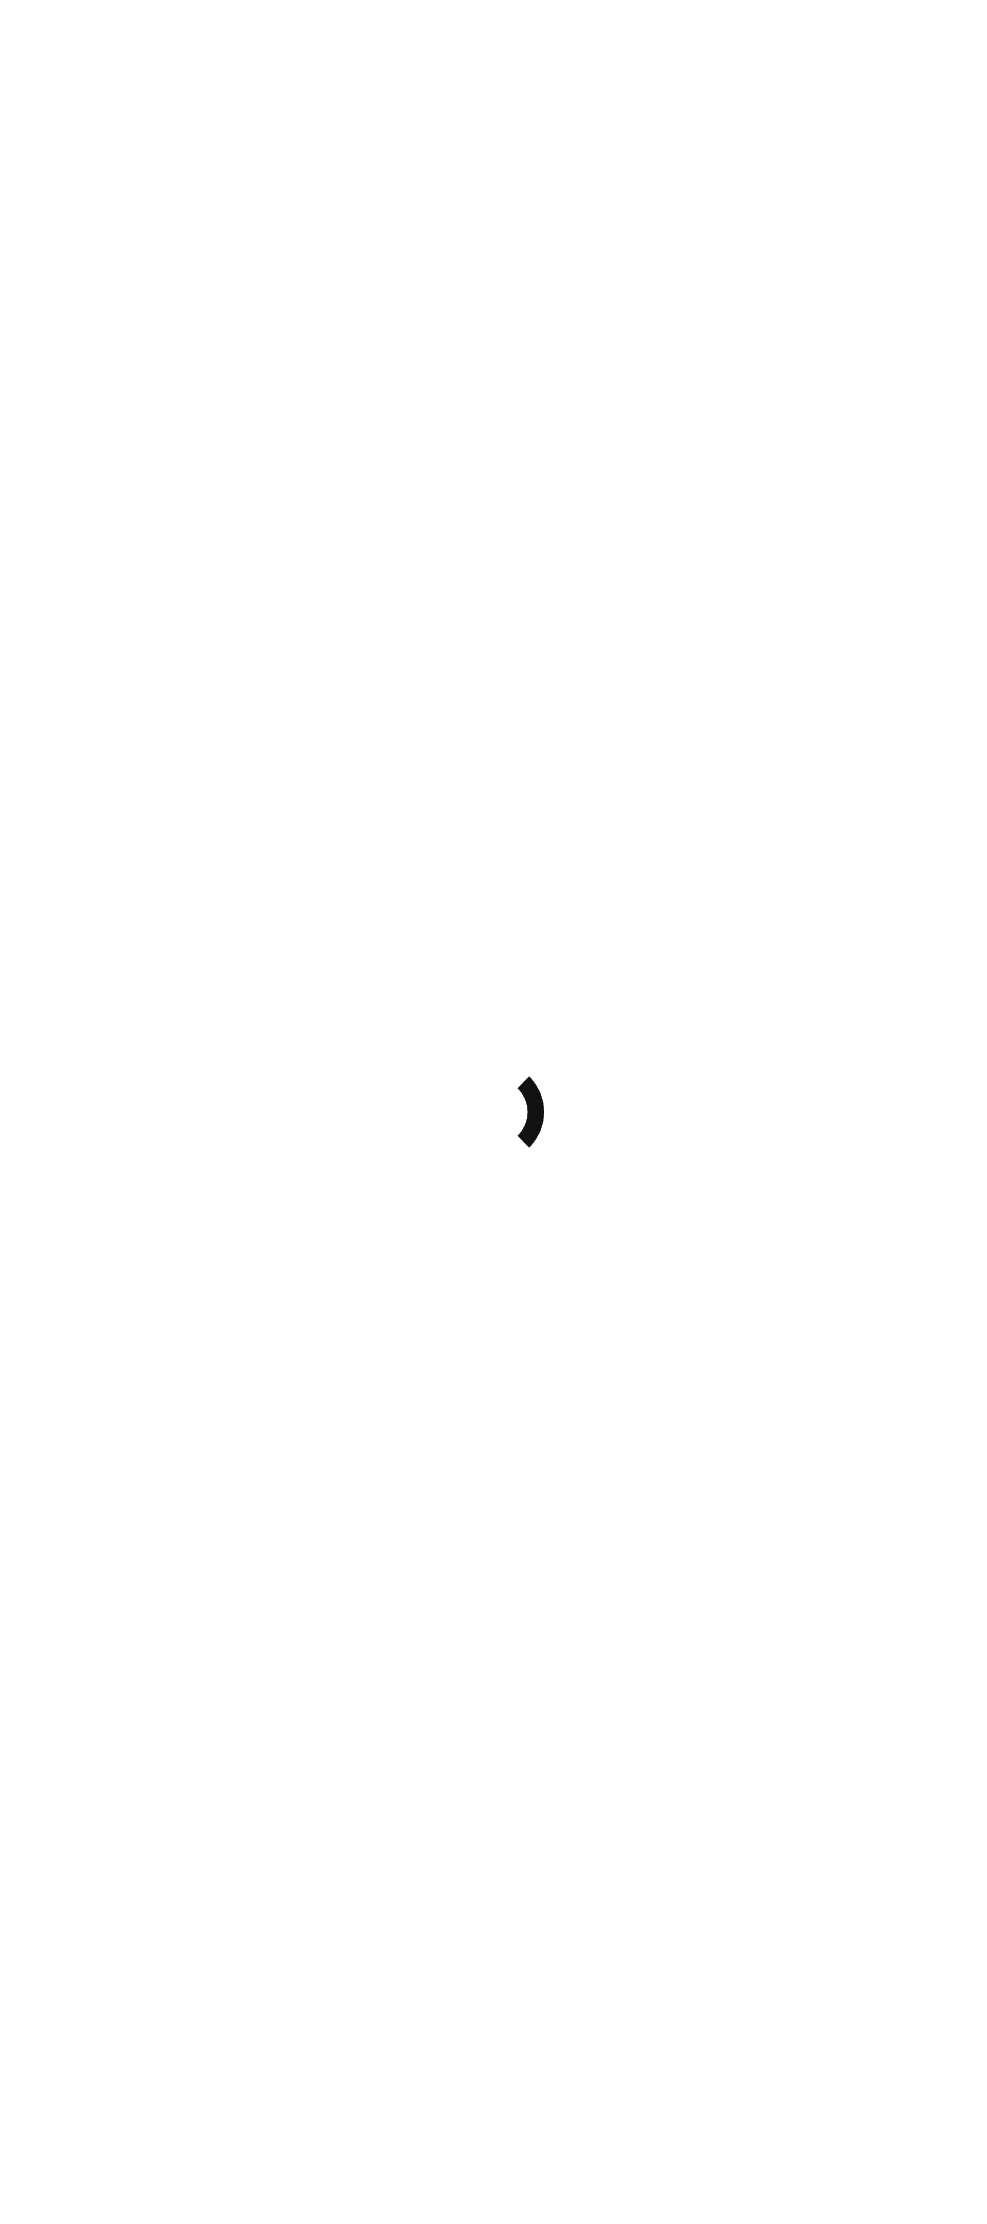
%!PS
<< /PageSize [987 2224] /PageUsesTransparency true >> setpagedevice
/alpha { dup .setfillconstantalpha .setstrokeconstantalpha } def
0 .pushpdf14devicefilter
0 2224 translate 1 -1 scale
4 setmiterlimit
1 setgray
0 0 987 2224 rectfill
0.408 setgray
16 setlinewidth
newpath 523.5 1082.5 moveto 540 1098.5 540 1125.5 523.5 1141.5 curveto stroke
0.59 alpha
0 setgray
newpath 523.5 1082.5 moveto 540 1098.5 540 1125.5 523.5 1141.5 curveto stroke
newpath 523.5 1082.5 moveto 540 1098.5 540 1125.5 523.5 1141.5 curveto stroke
.poppdf14devicefilter showpage
